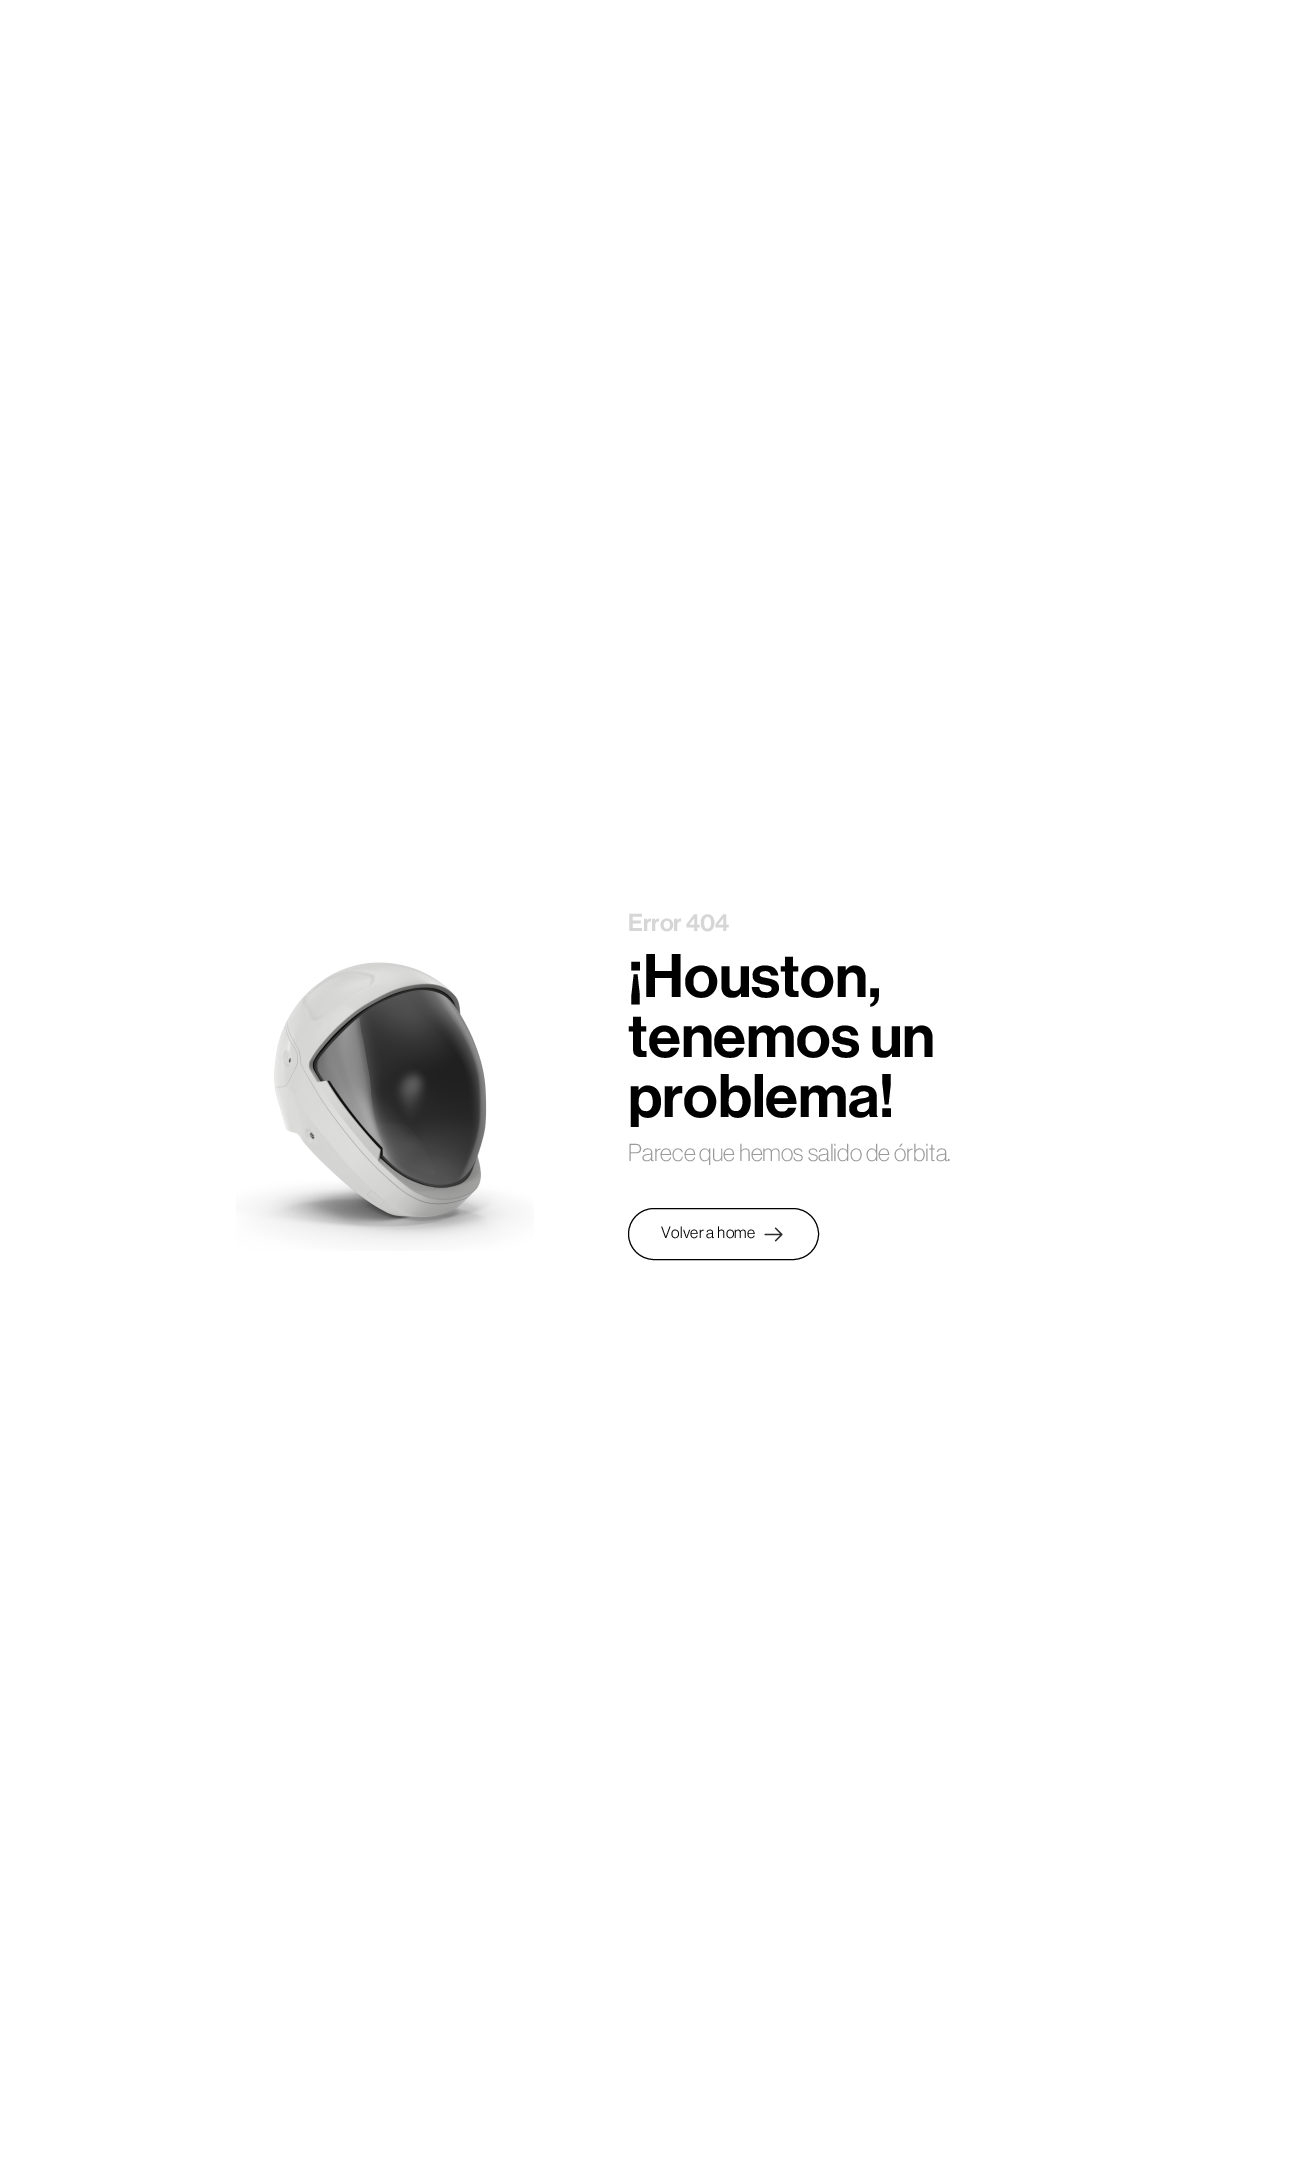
%!PS
<< /PageSize [1298 2168] >> setpagedevice
/roundrect { 5 dict begin { /r /h /w /y /x } { exch def } forall
  x r add y moveto x w add y 2 copy h add r arct x w add y h add x 1 index r arct
  x y h add x y r arct x y 2 copy exch w add exch r arct closepath end } def
/picture { 5 dict begin { /h /w /y /x /name } { exch def } forall
  gsave x y translate w h scale
  w h 8 [w 0 0 h 0 0] name (r) file false 3 colorimage grestore end } def
0 2168 translate 1 -1 scale
4 setmiterlimit
1 setgray
0 0 1298 2168 rectfill
(img1.rgb) 236 962 298 289 picture
/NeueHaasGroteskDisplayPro-SemiBold [24 0 0 -24 0 0] selectfont
0.839 setgray
628 931 moveto (Error 404) show
/NeueHaasGroteskDisplayPro-SemiBold [60 0 0 -60 0 0] selectfont
0 setgray
628 997 moveto (¡Houston,) show
628 1057 moveto (tenemos un) show
628 1117 moveto (problema!) show
/NeueHaasGroteskDisplayPro-Thin [24 0 0 -24 0 0] selectfont
0.6 setgray
628 1161 moveto (Parece que hemos salido de órbita.) show
0 setgray
628.5 1208.5 190 51 25.5 roundrect stroke
/NeueHaasGroteskDisplayPro-Light [16 0 0 -16 0 0] selectfont
661 1238 moveto 0.25 0 (Volver a home) ashow
(img2.rgb) 764 1227 19 15 picture
showpage
